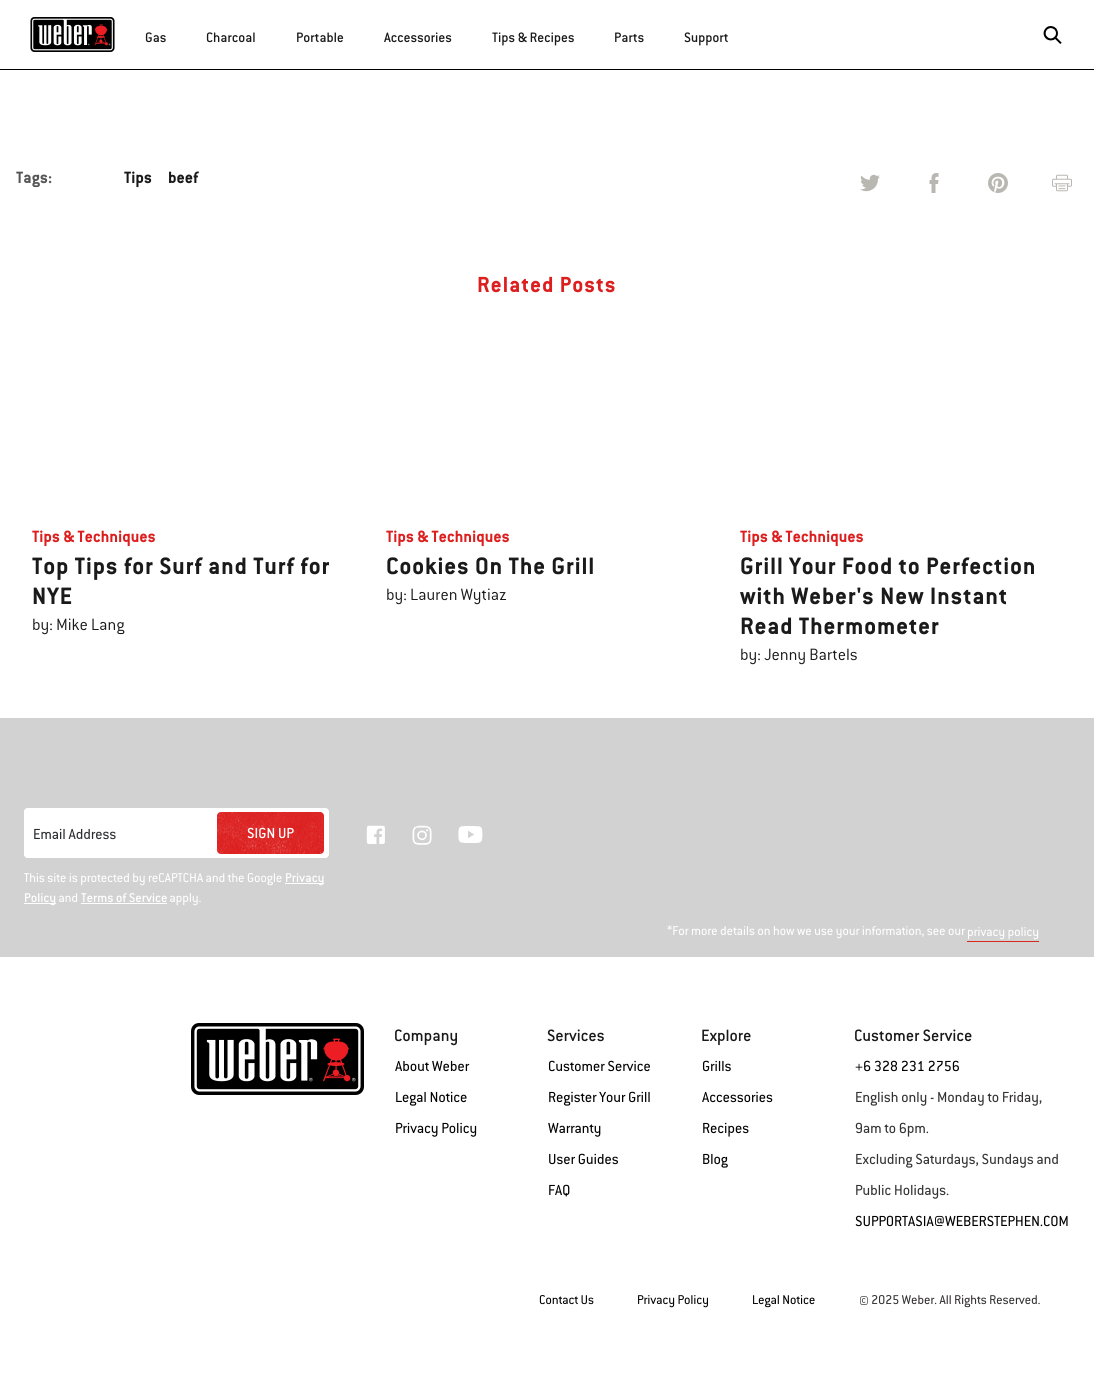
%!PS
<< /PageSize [1094 1385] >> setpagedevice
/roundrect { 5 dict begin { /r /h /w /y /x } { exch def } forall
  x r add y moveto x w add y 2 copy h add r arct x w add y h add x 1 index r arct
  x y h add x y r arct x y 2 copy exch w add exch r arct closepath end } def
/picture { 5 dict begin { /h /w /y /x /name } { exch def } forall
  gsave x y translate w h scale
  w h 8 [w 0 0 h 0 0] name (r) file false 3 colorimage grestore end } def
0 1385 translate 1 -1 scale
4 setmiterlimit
1 setgray
0 0 1094 1385 rectfill
0 setgray
0 69 1094 1 rectfill
(img1.rgb) 30 17 85 35 picture
(img2.rgb) 145 32 21 11 picture
(img3.rgb) 206 32 49 11 picture
(img4.rgb) 297 32 47 11 picture
(img5.rgb) 384 32 68 11 picture
(img6.rgb) 492 32 82 14 picture
(img7.rgb) 615 32 29 11 picture
(img8.rgb) 684 32 44 14 picture
(img9.rgb) 1043 26 19 18 picture
(img10.rgb) 16 171 36 17 picture
(img11.rgb) 124 171 28 17 picture
(img12.rgb) 169 171 30 13 picture
(img13.rgb) 860 174 20 18 picture
(img14.rgb) 929 173 10 20 picture
(img15.rgb) 988 173 20 20 picture
(img16.rgb) 1052 174 20 18 picture
(img17.rgb) 478 276 137 17 picture
(img18.rgb) 32 530 123 17 picture
(img19.rgb) 32 557 298 23 picture
(img20.rgb) 33 587 39 17 picture
(img21.rgb) 33 618 92 17 picture
(img18.rgb) 386 530 123 17 picture
(img22.rgb) 387 557 206 18 picture
(img23.rgb) 387 588 120 17 picture
(img18.rgb) 740 530 123 17 picture
(img24.rgb) 741 557 293 18 picture
(img25.rgb) 740 587 267 18 picture
(img26.rgb) 741 617 198 18 picture
(img27.rgb) 741 648 116 17 picture
0.824 setgray
0 718 1094 239 rectfill
1 setgray
24 808 302 50 4 roundrect fill
(img28.rgb) 34 828 82 12 picture
newpath 212 808 moveto 325 808 lineto 327 808 329 810 329 812 curveto 329 854 lineto 329 856 327 858 325 858 curveto 212 858 lineto closepath fill
0.863 0.118 0.118 setrgbcolor
217 812 107 42 4 roundrect fill
(img29.rgb) 217 812 107 42 picture
(img30.rgb) 247 827 47 12 picture
(img31.rgb) 24 873 258 13 picture
1 setgray
285 883 39 1 rectfill
(img32.rgb) 286 873 38 13 picture
24 903 32 1 rectfill
(img33.rgb) 25 893 31 13 picture
(img34.rgb) 59 893 19 9 picture
(img35.rgb) 81 893 86 10 picture
(img36.rgb) 170 893 31 13 picture
81 903 86 1 rectfill
(img37.rgb) 366 825 19 19 picture
(img38.rgb) 412 825 20 20 picture
(img39.rgb) 458 826 25 17 picture
(img40.rgb) 667 925 298 14 picture
(img41.rgb) 968 927 71 13 picture
0.835 0.169 0.118 setrgbcolor
967 941 72 1 rectfill
(img42.rgb) 191 1023 173 72 picture
(img43.rgb) 395 1029 62 17 picture
(img44.rgb) 395 1060 75 12 picture
(img45.rgb) 396 1091 71 15 picture
(img46.rgb) 396 1122 81 15 picture
(img47.rgb) 547 1029 57 13 picture
(img48.rgb) 548 1060 102 12 picture
(img49.rgb) 549 1091 101 15 picture
(img50.rgb) 548 1122 53 15 picture
(img51.rgb) 549 1153 69 12 picture
(img52.rgb) 549 1184 21 13 picture
(img53.rgb) 702 1029 49 17 picture
(img54.rgb) 702 1060 29 12 picture
(img55.rgb) 702 1091 71 12 picture
(img56.rgb) 703 1122 46 15 picture
(img57.rgb) 703 1153 25 15 picture
(img58.rgb) 855 1029 117 13 picture
(img59.rgb) 855 1060 104 12 picture
(img60.rgb) 856 1091 186 15 picture
(img61.rgb) 855 1122 74 15 picture
(img62.rgb) 856 1153 202 15 picture
(img63.rgb) 856 1184 93 15 picture
(img64.rgb) 855 1215 213 12 picture
(img65.rgb) 539 1295 55 10 picture
(img66.rgb) 638 1295 70 13 picture
(img67.rgb) 753 1295 62 13 picture
(img68.rgb) 860 1295 180 13 picture
showpage
